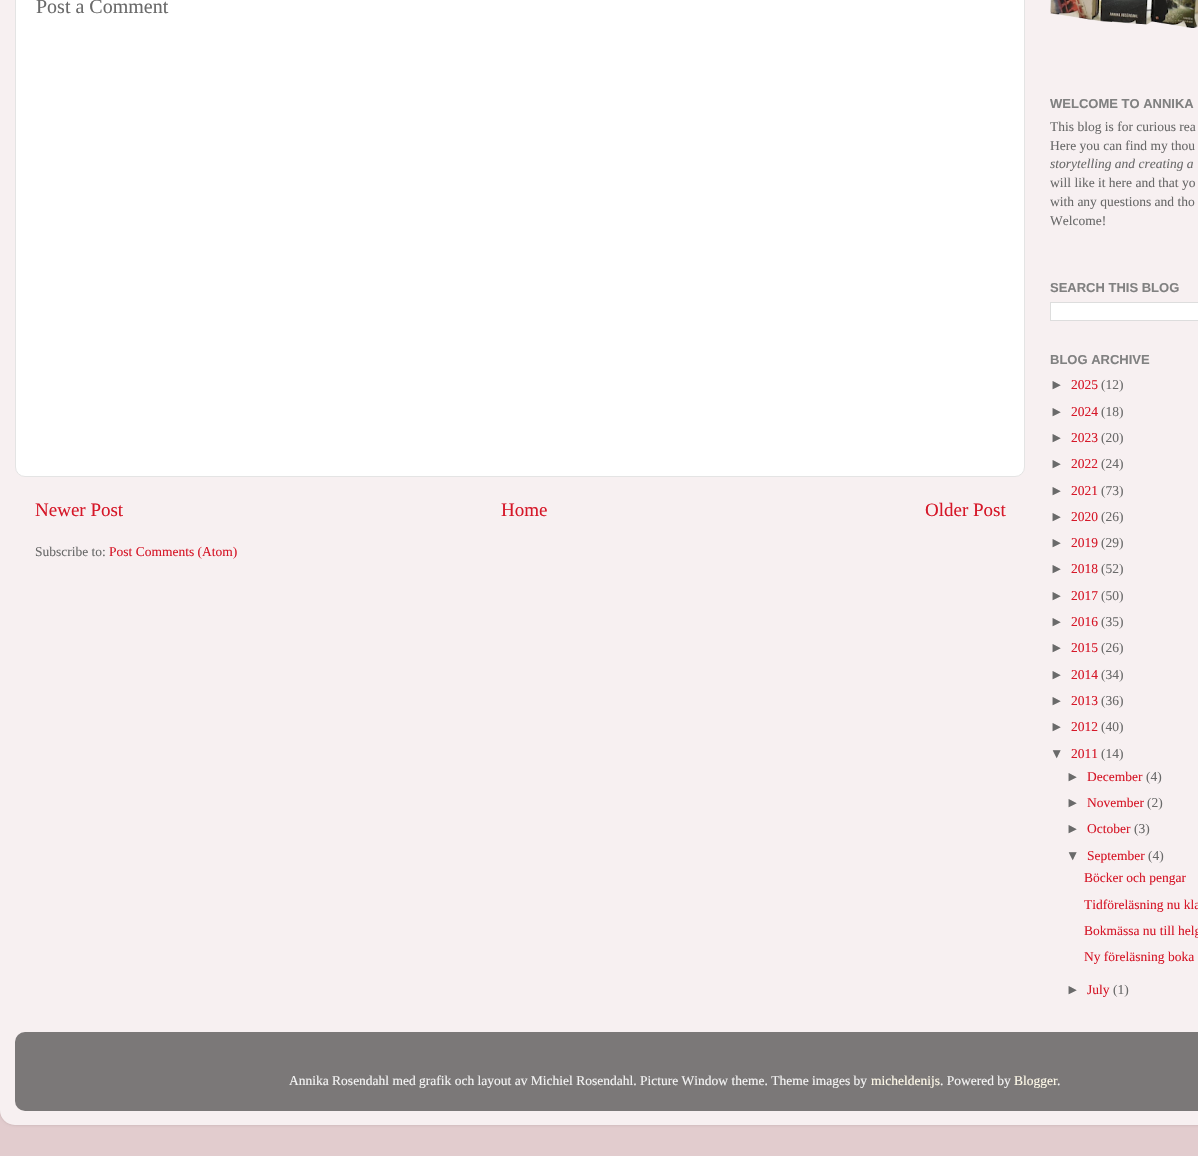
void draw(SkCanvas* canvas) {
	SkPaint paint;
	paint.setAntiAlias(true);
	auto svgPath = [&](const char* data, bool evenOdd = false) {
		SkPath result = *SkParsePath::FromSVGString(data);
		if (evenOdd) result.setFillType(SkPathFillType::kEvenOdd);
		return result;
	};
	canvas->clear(0xffe2ccce);
	canvas->save();
	canvas->clipPath(svgPath("M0 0H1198V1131H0ZM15-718H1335C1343.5-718 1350-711.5 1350-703V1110C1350 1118.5 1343.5 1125 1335 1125H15C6.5 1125 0 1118.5 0 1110V-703C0-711.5 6.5-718 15-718Z", true), true);
	paint.setColor(0x26000000);
	paint.setMaskFilter(SkMaskFilter::MakeBlur(kNormal_SkBlurStyle, 1.5));
	canvas->drawRoundRect(SkRect::MakeXYWH(0, -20, 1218, 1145), 15, 15, paint);
	paint.setMaskFilter(nullptr);
	canvas->restore();
	canvas->drawImageRect(SkImages::DeferredFromEncodedData(SkData::MakeFromFileName("img1.png")), SkRect::MakeXYWH(0, 0, 1198, 1125), SkSamplingOptions());
	paint.setColor(0xffffffff);
	canvas->drawRoundRect(SkRect::MakeXYWH(15.5, -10.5, 1009, 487), 9.5, 9.5, paint);
	paint.setStroke(true);
	paint.setStrokeWidth(1);
	paint.setColor(0xffe4e4e4);
	canvas->drawRoundRect(SkRect::MakeXYWH(15.5, -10.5, 1009, 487), 9.5, 9.5, paint);
	SkFont f1(fontMgr->matchFamilyStyle("Liberation Serif", SkFontStyle::Normal()), 20);
	f1.setSubpixel(true);
	paint.setStroke(false);
	paint.setColor(0xff6a6a6a);
	canvas->drawString("Post a Comment", 36, 13, f1, paint);
	SkFont f2(fontMgr->matchFamilyStyle("Liberation Serif", SkFontStyle::Normal()), 19);
	f2.setSubpixel(true);
	paint.setColor(0xffd61829);
	canvas->drawString("Newer Post", 35, 516, f2, paint);
	canvas->drawString("Home", 501, 516, f2, paint);
	canvas->drawString("Older Post", 925, 516, f2, paint);
	SkFont f3(fontMgr->matchFamilyStyle("Liberation Serif", SkFontStyle::Normal()), 13.5);
	f3.setSubpixel(true);
	paint.setColor(0xff6a6a6a);
	canvas->drawString("Subscribe to:", 35, 556, f3, paint);
	paint.setColor(0xffd61829);
	canvas->drawString("Post Comments (Atom)", 109, 556, f3, paint);
	canvas->drawImageRect(SkImages::DeferredFromEncodedData(SkData::MakeFromFileName("img2.png")), SkRect::MakeXYWH(1050, 0, 148, 28), SkSamplingOptions());
	SkFont f4(fontMgr->matchFamilyStyle("Liberation Sans", SkFontStyle::Bold()), 13);
	f4.setSubpixel(true);
	paint.setColor(0xff818181);
	canvas->drawString("WELCOME TO ANNIKA", 1050, 108, f4, paint);
	paint.setColor(0xff6a6a6a);
	canvas->drawString("This blog is for curious rea", 1050, 131, f3, paint);
	canvas->drawString("Here you can find my thou", 1050, 150, f3, paint);
	SkFont f5(fontMgr->matchFamilyStyle("Liberation Serif", SkFontStyle::Italic()), 13.5);
	f5.setSubpixel(true);
	canvas->drawString("storytelling and creating a", 1050, 168, f5, paint);
	canvas->drawString("will like it here and that yo", 1050, 187, f3, paint);
	canvas->drawString("with any questions and tho", 1050, 206, f3, paint);
	canvas->drawString("Welcome!", 1050, 225, f3, paint);
	paint.setColor(0xff818181);
	canvas->drawString("SEARCH THIS BLOG", 1050, 292, f4, paint);
	paint.setColor(0xffffffff);
	canvas->drawRect(SkRect::MakeXYWH(1050.5, 302.5, 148, 18), paint);
	paint.setStroke(true);
	paint.setColor(0xffdddddd);
	canvas->drawRect(SkRect::MakeXYWH(1050.5, 302.5, 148, 18), paint);
	paint.setStroke(false);
	paint.setColor(0xff818181);
	canvas->drawString("BLOG ARCHIVE", 1050, 364, f4, paint);
	SkFont f6(fontMgr->matchFamilyStyle("Liberation Sans", SkFontStyle::Normal()), 13.5);
	f6.setSubpixel(true);
	paint.setColor(0xff6a6a6a);
	canvas->drawString("►", 1050, 389, f6, paint);
	paint.setColor(0xffd61829);
	canvas->drawString("2025", 1071, 389, f3, paint);
	paint.setColor(0xff6a6a6a);
	canvas->drawString("(12)", 1101, 389, f3, paint);
	canvas->drawString("►", 1050, 416, f6, paint);
	paint.setColor(0xffd61829);
	canvas->drawString("2024", 1071, 416, f3, paint);
	paint.setColor(0xff6a6a6a);
	canvas->drawString("(18)", 1101, 416, f3, paint);
	canvas->drawString("►", 1050, 442, f6, paint);
	paint.setColor(0xffd61829);
	canvas->drawString("2023", 1071, 442, f3, paint);
	paint.setColor(0xff6a6a6a);
	canvas->drawString("(20)", 1101, 442, f3, paint);
	canvas->drawString("►", 1050, 468, f6, paint);
	paint.setColor(0xffd61829);
	canvas->drawString("2022", 1071, 468, f3, paint);
	paint.setColor(0xff6a6a6a);
	canvas->drawString("(24)", 1101, 468, f3, paint);
	canvas->drawString("►", 1050, 495, f6, paint);
	paint.setColor(0xffd61829);
	canvas->drawString("2021", 1071, 495, f3, paint);
	paint.setColor(0xff6a6a6a);
	canvas->drawString("(73)", 1101, 495, f3, paint);
	canvas->drawString("►", 1050, 521, f6, paint);
	paint.setColor(0xffd61829);
	canvas->drawString("2020", 1071, 521, f3, paint);
	paint.setColor(0xff6a6a6a);
	canvas->drawString("(26)", 1101, 521, f3, paint);
	canvas->drawString("►", 1050, 547, f6, paint);
	paint.setColor(0xffd61829);
	canvas->drawString("2019", 1071, 547, f3, paint);
	paint.setColor(0xff6a6a6a);
	canvas->drawString("(29)", 1101, 547, f3, paint);
	canvas->drawString("►", 1050, 573, f6, paint);
	paint.setColor(0xffd61829);
	canvas->drawString("2018", 1071, 573, f3, paint);
	paint.setColor(0xff6a6a6a);
	canvas->drawString("(52)", 1101, 573, f3, paint);
	canvas->drawString("►", 1050, 600, f6, paint);
	paint.setColor(0xffd61829);
	canvas->drawString("2017", 1071, 600, f3, paint);
	paint.setColor(0xff6a6a6a);
	canvas->drawString("(50)", 1101, 600, f3, paint);
	canvas->drawString("►", 1050, 626, f6, paint);
	paint.setColor(0xffd61829);
	canvas->drawString("2016", 1071, 626, f3, paint);
	paint.setColor(0xff6a6a6a);
	canvas->drawString("(35)", 1101, 626, f3, paint);
	canvas->drawString("►", 1050, 652, f6, paint);
	paint.setColor(0xffd61829);
	canvas->drawString("2015", 1071, 652, f3, paint);
	paint.setColor(0xff6a6a6a);
	canvas->drawString("(26)", 1101, 652, f3, paint);
	canvas->drawString("►", 1050, 679, f6, paint);
	paint.setColor(0xffd61829);
	canvas->drawString("2014", 1071, 679, f3, paint);
	paint.setColor(0xff6a6a6a);
	canvas->drawString("(34)", 1101, 679, f3, paint);
	canvas->drawString("►", 1050, 705, f6, paint);
	paint.setColor(0xffd61829);
	canvas->drawString("2013", 1071, 705, f3, paint);
	paint.setColor(0xff6a6a6a);
	canvas->drawString("(36)", 1101, 705, f3, paint);
	canvas->drawString("►", 1050, 731, f6, paint);
	paint.setColor(0xffd61829);
	canvas->drawString("2012", 1071, 731, f3, paint);
	paint.setColor(0xff6a6a6a);
	canvas->drawString("(40)", 1101, 731, f3, paint);
	canvas->drawString("▼", 1050, 758, f6, paint);
	paint.setColor(0xffd61829);
	canvas->drawString("2011", 1071, 758, f3, paint);
	paint.setColor(0xff6a6a6a);
	canvas->drawString("(14)", 1101, 758, f3, paint);
	canvas->drawString("►", 1066, 781, f6, paint);
	paint.setColor(0xffd61829);
	canvas->drawString("December", 1087, 781, f3, paint);
	paint.setColor(0xff6a6a6a);
	canvas->drawString("(4)", 1146, 781, f3, paint);
	canvas->drawString("►", 1066, 807, f6, paint);
	paint.setColor(0xffd61829);
	canvas->drawString("November", 1087, 807, f3, paint);
	paint.setColor(0xff6a6a6a);
	canvas->drawString("(2)", 1147, 807, f3, paint);
	canvas->drawString("►", 1066, 833, f6, paint);
	paint.setColor(0xffd61829);
	canvas->drawString("October", 1087, 833, f3, paint);
	paint.setColor(0xff6a6a6a);
	canvas->drawString("(3)", 1134, 833, f3, paint);
	canvas->drawString("▼", 1066, 860, f6, paint);
	paint.setColor(0xffd61829);
	canvas->drawString("September", 1087, 860, f3, paint);
	paint.setColor(0xff6a6a6a);
	canvas->drawString("(4)", 1148, 860, f3, paint);
	paint.setColor(0xffd61829);
	canvas->drawString("Böcker och pengar", 1084, 882, f3, paint);
	canvas->drawString("Tidföreläsning nu kla", 1084, 909, f3, paint);
	canvas->drawString("Bokmässa nu till helg", 1084, 935, f3, paint);
	canvas->drawString("Ny föreläsning boka", 1084, 961, f3, paint);
	paint.setColor(0xff6a6a6a);
	canvas->drawString("►", 1066, 994, f6, paint);
	paint.setColor(0xffd61829);
	canvas->drawString("July", 1087, 994, f3, paint);
	paint.setColor(0xff6a6a6a);
	canvas->drawString("(1)", 1113, 994, f3, paint);
	canvas->drawImageRect(SkImages::DeferredFromEncodedData(SkData::MakeFromFileName("img3.png")), SkRect::MakeXYWH(15, 1032, 1183, 79), SkSamplingOptions());
	paint.setColor(0xfff4f4f4);
	canvas->drawString("Annika Rosendahl med grafik och layout av Michiel Rosendahl. Picture Window theme. Theme images by", 289, 1085, f3, paint);
	paint.setColor(0xfffffae9);
	canvas->drawString("micheldenijs", 871, 1085, f3, paint);
	paint.setColor(0xfff4f4f4);
	canvas->drawString(". Powered by", 940, 1085, f3, paint);
	paint.setColor(0xfffffae9);
	canvas->drawString("Blogger", 1014, 1085, f3, paint);
	paint.setColor(0xfff4f4f4);
	canvas->drawString(".", 1057, 1085, f3, paint);
}
